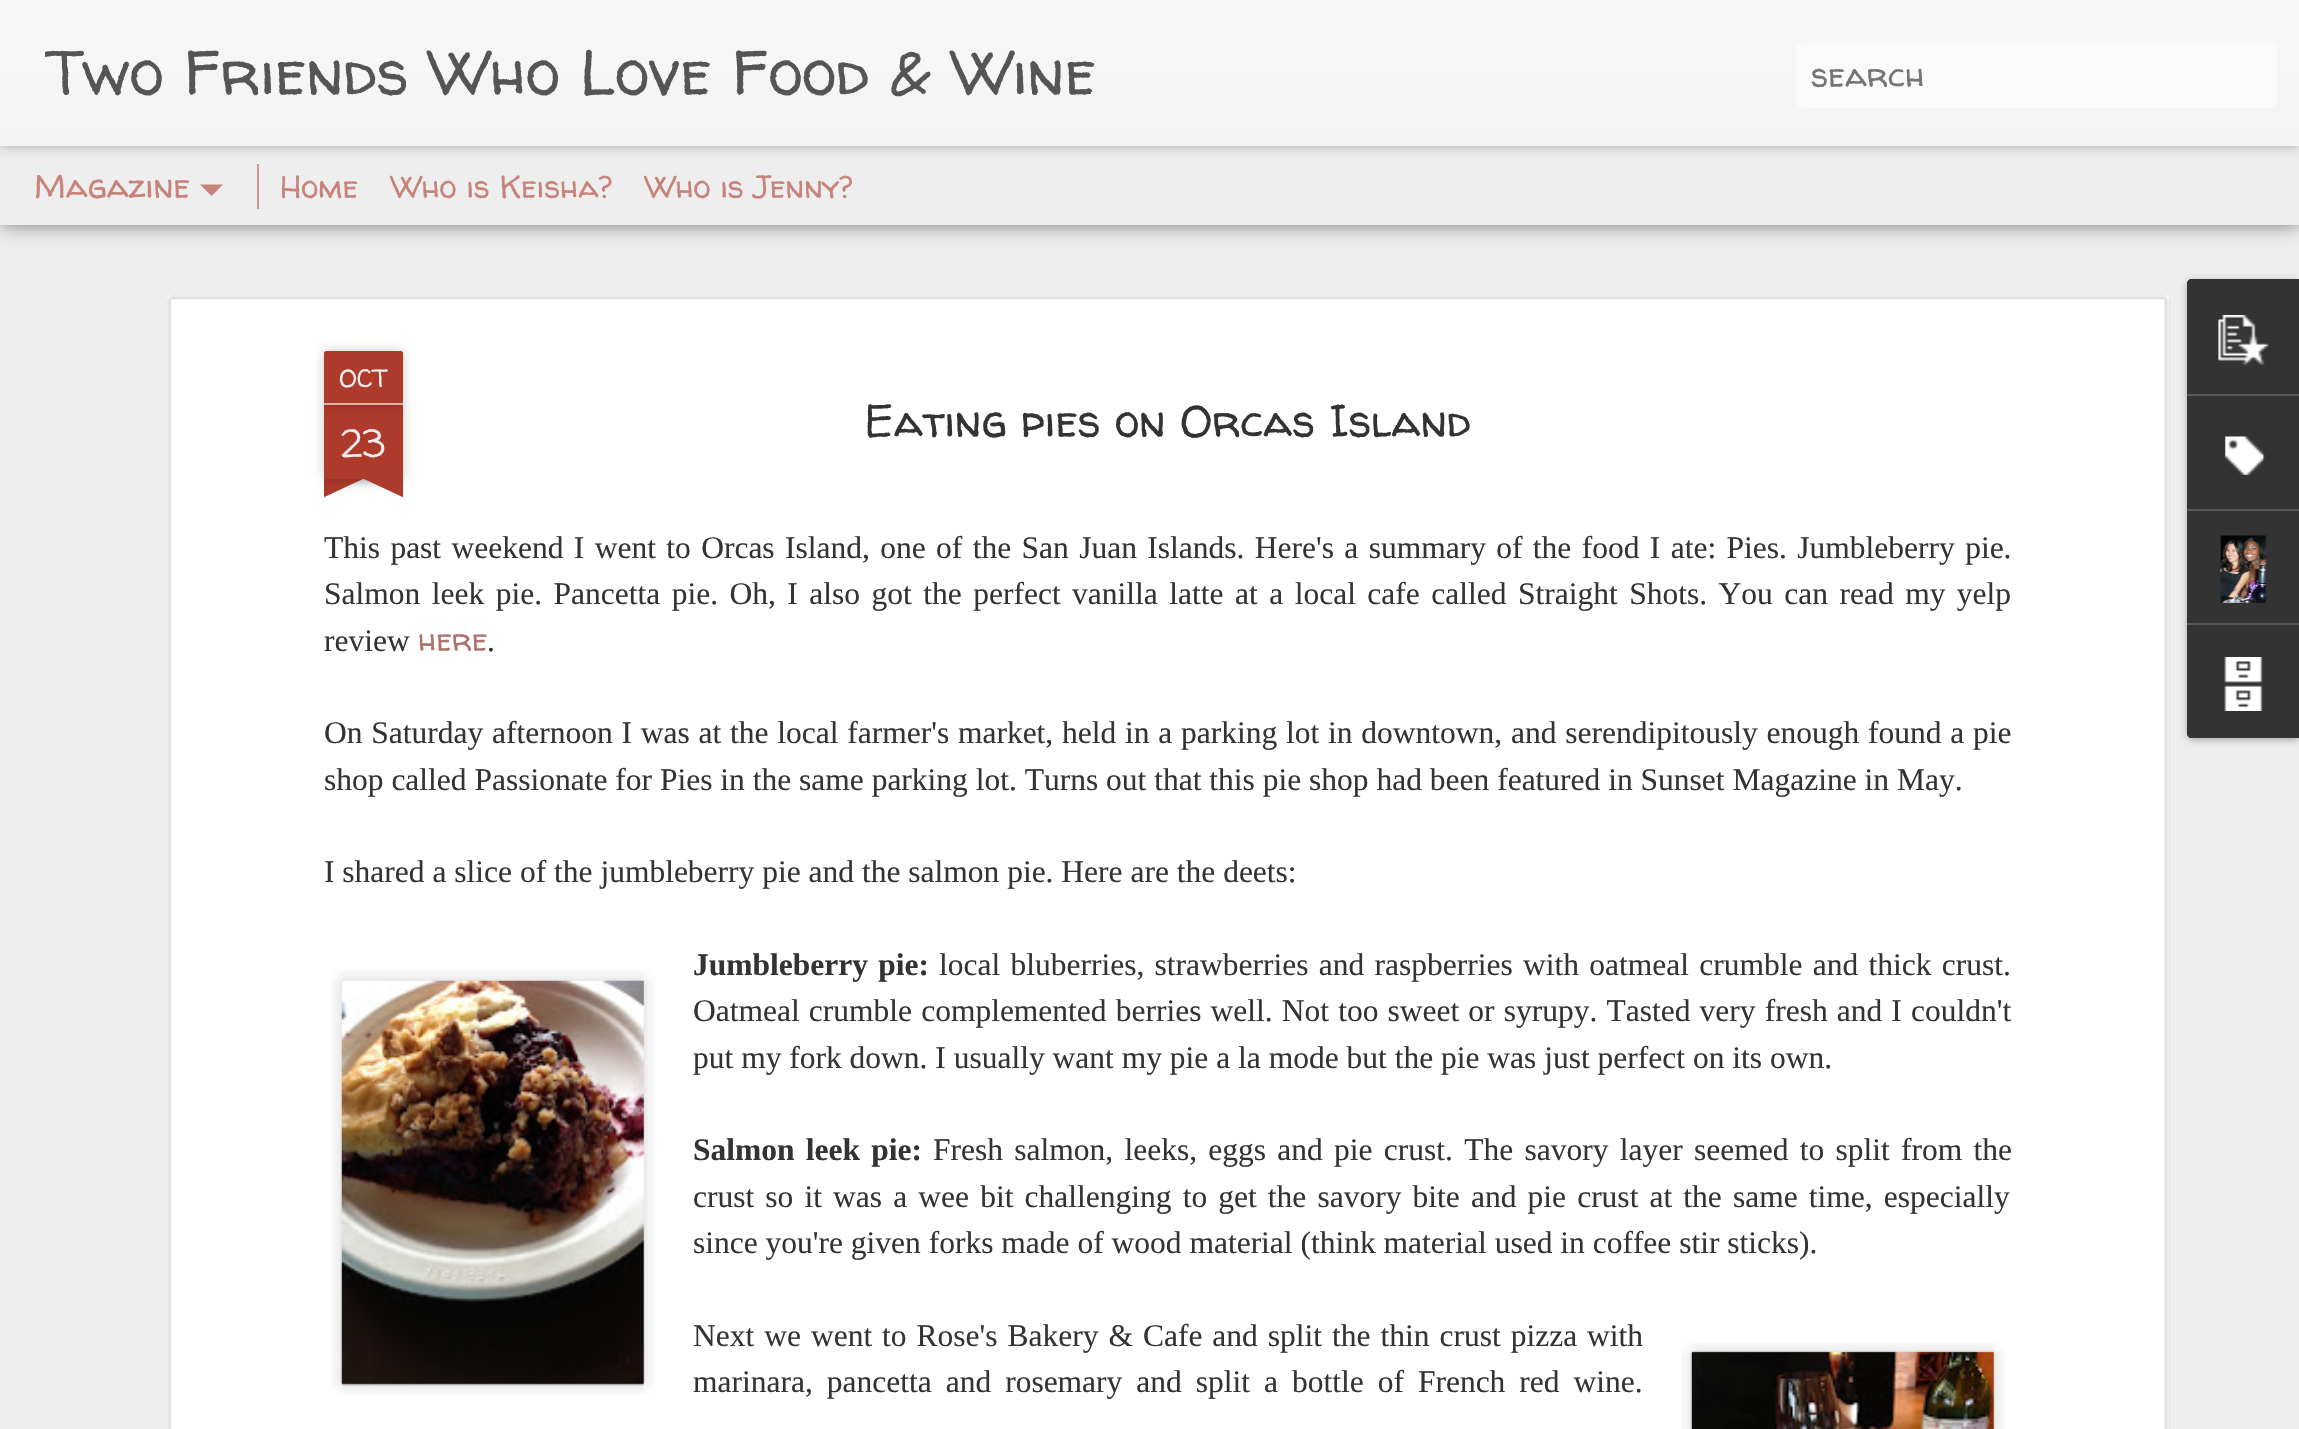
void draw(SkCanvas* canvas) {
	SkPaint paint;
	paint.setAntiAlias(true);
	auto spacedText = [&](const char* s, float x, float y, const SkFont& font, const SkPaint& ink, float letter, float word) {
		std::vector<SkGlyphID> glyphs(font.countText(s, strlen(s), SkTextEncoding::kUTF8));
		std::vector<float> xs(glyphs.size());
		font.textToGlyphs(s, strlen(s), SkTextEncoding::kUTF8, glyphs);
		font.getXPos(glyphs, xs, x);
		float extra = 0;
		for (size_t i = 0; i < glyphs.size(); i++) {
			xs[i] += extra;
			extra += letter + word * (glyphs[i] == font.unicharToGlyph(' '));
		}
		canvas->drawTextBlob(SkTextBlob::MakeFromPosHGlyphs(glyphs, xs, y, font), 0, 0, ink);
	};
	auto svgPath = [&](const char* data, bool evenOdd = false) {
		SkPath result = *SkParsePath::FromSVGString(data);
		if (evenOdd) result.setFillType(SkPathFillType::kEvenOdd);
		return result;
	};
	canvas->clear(0xffeeeeee);
	paint.setColor(0x80000000);
	paint.setMaskFilter(SkMaskFilter::MakeBlur(kNormal_SkBlurStyle, 9));
	canvas->drawRect(SkRect::MakeXYWH(0, 146, 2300, 79), paint);
	paint.setMaskFilter(nullptr);
	paint.setColor(0xffeeeeee);
	canvas->drawRect(SkRect::MakeXYWH(0, 146, 2299, 79), paint);
	paint.setColor(0x4d000000);
	paint.setMaskFilter(SkMaskFilter::MakeBlur(kNormal_SkBlurStyle, 5.5));
	canvas->drawRect(SkRect::MakeXYWH(0, 0, 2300, 146), paint);
	paint.setMaskFilter(nullptr);
	{
		const SkColor colors[] = {0xfff7f7f7, 0xfff4f4f4};
		const float stops[] = {0, 1};
		const SkPoint ends[] = {{0, 0}, {0, 146}};
		paint.setShader(SkGradientShader::MakeLinear(ends, colors, stops, 2, SkTileMode::kClamp));
		paint.setAlpha(255);
	}
	canvas->drawRect(SkRect::MakeXYWH(0, 0, 2299, 146), paint);
	canvas->save();
	canvas->clipRect(SkRect::MakeXYWH(45, 0, 1726, 146));
	SkFont f1(fontMgr->matchFamilyStyle("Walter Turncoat", SkFontStyle::Normal()), 63);
	f1.setSubpixel(true);
	paint.setShader(nullptr);
	paint.setColor(0xff555555);
	canvas->drawString("Two Friends Who Love Food & Wine", 45, 95, f1, paint);
	canvas->restore();
	paint.setColor(0xfffafafa);
	canvas->drawRoundRect(SkRect::MakeXYWH(1796, 41, 481, 67), 7, 7, paint);
	SkFont f2(fontMgr->matchFamilyStyle("Walter Turncoat", SkFontStyle::Normal()), 33.75);
	f2.setSubpixel(true);
	paint.setColor(0xff757575);
	canvas->drawString("search", 1811, 87, f2, paint);
	paint.setColor(0xffc78279);
	canvas->drawString("Magazine", 34, 198, f2, paint);
	canvas->drawPath(svgPath("M200 184.5H223L211.5 196Z"), paint);
	paint.setColor(0xffce948d);
	canvas->drawRect(SkRect::MakeXYWH(257, 164, 2, 45), paint);
	SkFont f3(fontMgr->matchFamilyStyle("Walter Turncoat", SkFontStyle::Normal()), 31.5);
	f3.setSubpixel(true);
	paint.setColor(0xffc78279);
	canvas->drawString("Home", 280, 198, f3, paint);
	canvas->drawString("Who is Keisha?", 391, 198, f3, paint);
	canvas->drawString("Who is Jenny?", 645, 198, f3, paint);
	paint.setColor(0xffffffff);
	canvas->drawRect(SkRect::MakeXYWH(167, 295, 2002, 1134), paint);
	canvas->drawImageRect(SkImages::DeferredFromEncodedData(SkData::MakeFromFileName("img1.png")), SkRect::MakeXYWH(167, 295, 2003, 1134), SkSamplingOptions());
	paint.setColor(0x33000000);
	paint.setMaskFilter(SkMaskFilter::MakeBlur(kNormal_SkBlurStyle, 5.5));
	canvas->drawRect(SkRect::MakeXYWH(324, 405, 79, 74), paint);
	paint.setMaskFilter(nullptr);
	paint.setColor(0xffad3a2b);
	canvas->drawRect(SkRect::MakeXYWH(324, 405, 79, 74), paint);
	paint.setColor(0x33000000);
	paint.setMaskFilter(SkMaskFilter::MakeBlur(kNormal_SkBlurStyle, 5.5));
	canvas->drawRoundRect(SkRect::MakeXYWH(324, 351, 79, 54), 2, 2, paint);
	paint.setMaskFilter(nullptr);
	paint.setColor(0xffad3a2b);
	canvas->drawPath(svgPath("M326 351H401C402 351 403 352 403 353V405H324V353C324 352 325 351 326 351Z"), paint);
	paint.setColor(0xffdeb0aa);
	canvas->drawRect(SkRect::MakeXYWH(324, 403, 79, 2), paint);
	SkFont f4(fontMgr->matchFamilyStyle("Walter Turncoat", SkFontStyle::Normal()), 25);
	f4.setSubpixel(true);
	paint.setColor(0xffeeeeee);
	canvas->drawString("OCT", 339, 387, f4, paint);
	SkFont f5(fontMgr->matchFamilyStyle("Walter Turncoat", SkFontStyle::Normal()), 38);
	f5.setSubpixel(true);
	canvas->drawString("23", 341, 457, f5, paint);
	canvas->save();
	canvas->clipRect(SkRect::MakeXYWH(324, 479, 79, 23));
	paint.setColor(0x33000000);
	paint.setMaskFilter(SkMaskFilter::MakeBlur(kNormal_SkBlurStyle, 5.5));
	canvas->drawRect(SkRect::MakeXYWH(304, 457, 112, 22), paint);
	paint.setMaskFilter(nullptr);
	canvas->restore();
	canvas->save();
	canvas->clipRect(SkRect::MakeXYWH(324, 479, 79, 23));
	paint.setColor(0xffad3a2b);
	canvas->drawPath(svgPath("M304 482L406 434L416 454L314 502Z"), paint);
	canvas->restore();
	canvas->save();
	canvas->clipRect(SkRect::MakeXYWH(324, 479, 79, 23));
	paint.setColor(0x33000000);
	paint.setMaskFilter(SkMaskFilter::MakeBlur(kNormal_SkBlurStyle, 5.5));
	canvas->drawRect(SkRect::MakeXYWH(311, 457, 112, 22), paint);
	paint.setMaskFilter(nullptr);
	canvas->restore();
	canvas->save();
	canvas->clipRect(SkRect::MakeXYWH(324, 479, 79, 23));
	paint.setColor(0xffad3a2b);
	canvas->drawPath(svgPath("M321 434L422 482L413 502L311 454Z"), paint);
	canvas->restore();
	SkFont f6(fontMgr->matchFamilyStyle("Walter Turncoat", SkFontStyle::Normal()), 45);
	f6.setSubpixel(true);
	paint.setColor(0xff333333);
	canvas->drawString("Eating pies on Orcas Island", 864, 437, f6, paint);
	SkFont f7(fontMgr->matchFamilyStyle("Liberation Serif", SkFontStyle::Normal()), 31.5);
	f7.setSubpixel(true);
	spacedText("This past weekend I went to Orcas Island, one of the San Juan Islands. Here's a summary of the food I ate: Pies. Jumbleberry pie.", 324, 558, f7, paint, 0, 2.5);
	spacedText("Salmon leek pie. Pancetta pie. Oh, I also got the perfect vanilla latte at a local cafe called Straight Shots. You can read my yelp", 324, 604, f7, paint, 0, 3.6);
	canvas->drawString("review", 324, 651, f7, paint);
	paint.setColor(0xffad736c);
	canvas->drawString("here", 418, 651, f3, paint);
	paint.setColor(0xff333333);
	canvas->drawString(".", 487, 651, f7, paint);
	spacedText("On Saturday afternoon I was at the local farmer's market, held in a parking lot in downtown, and serendipitously enough found a pie", 324, 743, f7, paint, 0, 0.9);
	canvas->drawString("shop called Passionate for Pies in the same parking lot. Turns out that this pie shop had been featured in Sunset Magazine in May.", 324, 790, f7, paint);
	canvas->drawString("I shared a slice of the jumbleberry pie and the salmon pie. Here are the deets:", 324, 882, f7, paint);
	canvas->drawImageRect(SkImages::DeferredFromEncodedData(SkData::MakeFromFileName("img2.png")), SkRect::MakeXYWH(331, 970, 324, 425), SkSamplingOptions());
	canvas->drawImageRect(SkImages::DeferredFromEncodedData(SkData::MakeFromFileName("img3.png")), SkRect::MakeXYWH(340, 979, 305, 407), SkSamplingOptions());
	SkFont f8(fontMgr->matchFamilyStyle("Liberation Serif", SkFontStyle::Bold()), 31.5);
	f8.setSubpixel(true);
	spacedText("Jumbleberry pie:", 693, 975, f8, paint, 0, 2.4);
	spacedText("local bluberries, strawberries and raspberries with oatmeal crumble and thick crust.", 939, 975, f7, paint, 0, 2.4);
	spacedText("Oatmeal crumble complemented berries well. Not too sweet or syrupy. Tasted very fresh and I couldn't", 693, 1021, f7, paint, 0, 1.25);
	canvas->drawString("put my fork down. I usually want my pie a la mode but the pie was just perfect on its own.", 693, 1068, f7, paint);
	spacedText("Salmon leek pie:", 693, 1160, f8, paint, 0, 3.4);
	spacedText("Fresh salmon, leeks, eggs and pie crust. The savory layer seemed to split from the", 933, 1160, f7, paint, 0, 3.4);
	spacedText("crust so it was a wee bit challenging to get the savory bite and pie crust at the same time, especially", 693, 1207, f7, paint, 0, 3.25);
	canvas->drawString("since you're given forks made of wood material (think material used in coffee stir sticks).", 693, 1253, f7, paint);
	spacedText("Next we went to Rose's Bakery & Cafe and split the thin crust pizza with", 693, 1346, f7, paint, 0, 2.1);
	spacedText("marinara, pancetta and rosemary and split a bottle of French red wine.", 693, 1392, f7, paint, 0, 6.1);
	canvas->drawImageRect(SkImages::DeferredFromEncodedData(SkData::MakeFromFileName("img4.png")), SkRect::MakeXYWH(1681, 1342, 324, 87), SkSamplingOptions());
	canvas->drawImageRect(SkImages::DeferredFromEncodedData(SkData::MakeFromFileName("img5.png")), SkRect::MakeXYWH(1690, 1350, 305, 79), SkSamplingOptions());
	paint.setColor(0x4d000000);
	paint.setMaskFilter(SkMaskFilter::MakeBlur(kNormal_SkBlurStyle, 3.5));
	canvas->drawRoundRect(SkRect::MakeXYWH(2187, 281, 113, 459), 5, 5, paint);
	paint.setMaskFilter(nullptr);
	paint.setColor(0xff333333);
	canvas->drawPath(svgPath("M2192 279H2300V738H2192C2189 738 2187 736 2187 733V284C2187 281 2189 279 2192 279Z"), paint);
	canvas->drawPath(svgPath("M2192 279H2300V394H2187V284C2187 281 2189 279 2192 279Z"), paint);
	canvas->drawImageRect(SkImages::DeferredFromEncodedData(SkData::MakeFromFileName("img6.png")), SkRect::MakeXYWH(2218, 315, 51, 50), SkSamplingOptions());
	paint.setColor(0xff585858);
	canvas->drawRect(SkRect::MakeXYWH(2187, 394, 112, 2), paint);
	canvas->drawImageRect(SkImages::DeferredFromEncodedData(SkData::MakeFromFileName("img7.png")), SkRect::MakeXYWH(2225, 436, 40, 39), SkSamplingOptions());
	canvas->drawRect(SkRect::MakeXYWH(2187, 509, 112, 2), paint);
	canvas->drawImageRect(SkImages::DeferredFromEncodedData(SkData::MakeFromFileName("img8.png")), SkRect::MakeXYWH(2220, 535, 47, 68), SkSamplingOptions());
	paint.setColor(0xff333333);
	canvas->drawPath(svgPath("M2187 623H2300V738H2192C2189 738 2187 736 2187 733Z"), paint);
	paint.setColor(0xff585858);
	canvas->drawRect(SkRect::MakeXYWH(2187, 623, 112, 2), paint);
	canvas->drawImageRect(SkImages::DeferredFromEncodedData(SkData::MakeFromFileName("img9.png")), SkRect::MakeXYWH(2224, 657, 39, 54), SkSamplingOptions());
}
